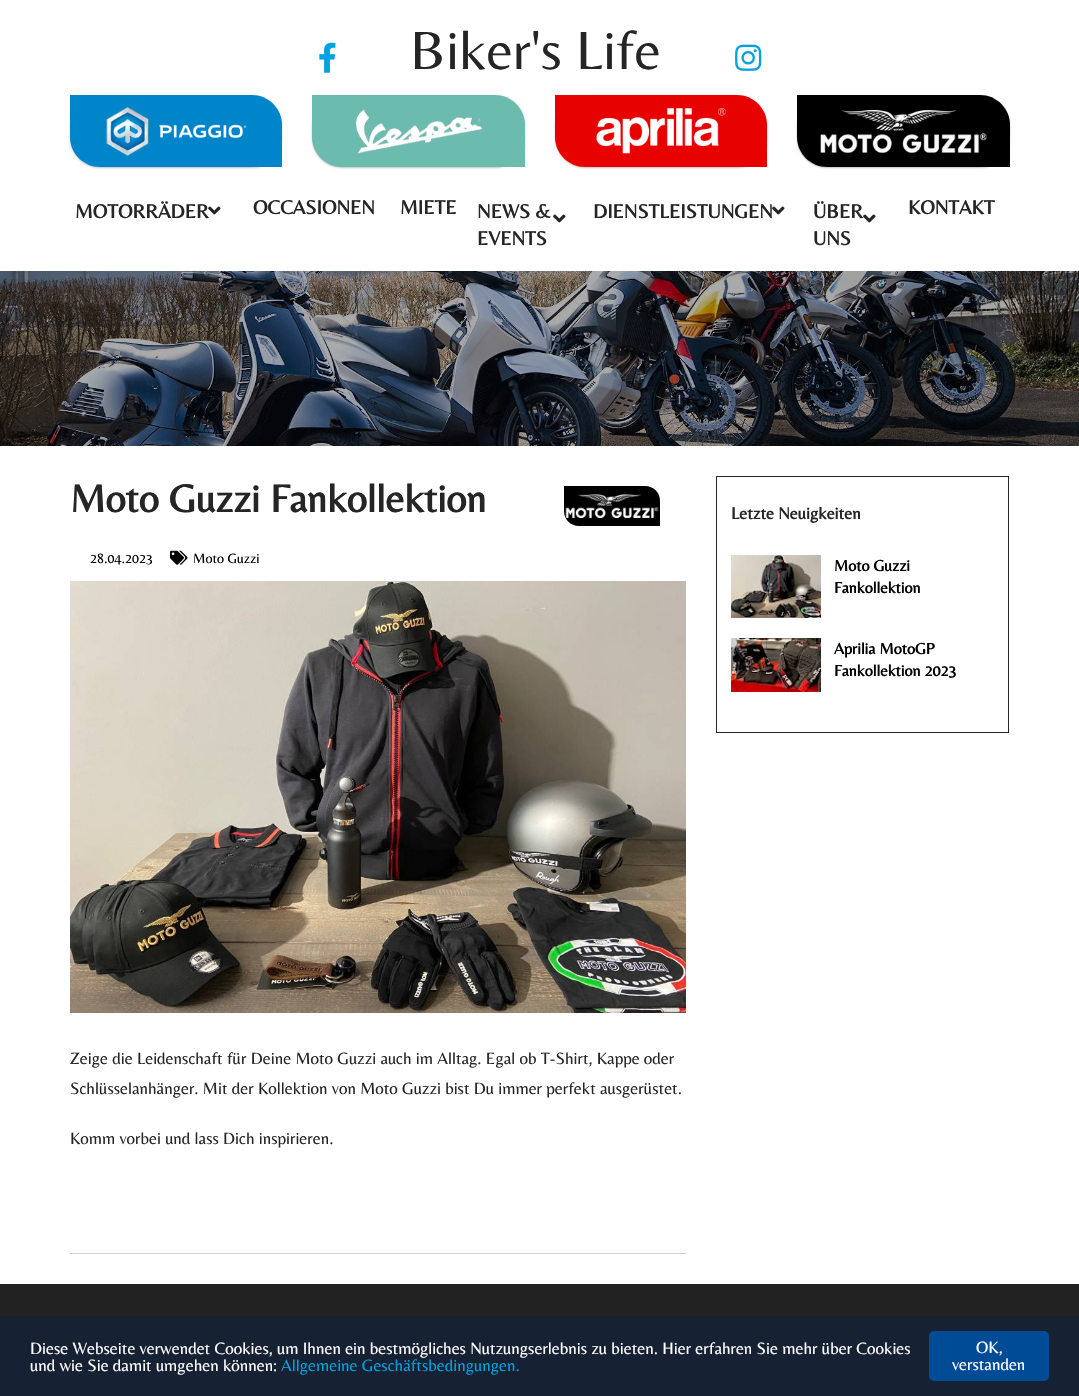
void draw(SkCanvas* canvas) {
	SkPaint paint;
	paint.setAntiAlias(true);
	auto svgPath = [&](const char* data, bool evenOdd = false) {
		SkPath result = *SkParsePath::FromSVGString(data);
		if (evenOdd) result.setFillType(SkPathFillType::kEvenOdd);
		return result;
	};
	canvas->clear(0xffffffff);
	canvas->drawImageRect(SkImages::DeferredFromEncodedData(SkData::MakeFromFileName("img1.png")), SkRect::MakeXYWH(319, 42, 17, 31), SkSamplingOptions());
	SkFont f1(fontMgr->matchFamilyStyle("Belleza", SkFontStyle::Normal()), 56);
	f1.setSubpixel(true);
	paint.setColor(0xff252525);
	canvas->drawString("Biker's Life", 410, 69, f1, paint);
	canvas->drawImageRect(SkImages::DeferredFromEncodedData(SkData::MakeFromFileName("img2.png")), SkRect::MakeXYWH(735, 44, 27, 27), SkSamplingOptions());
	paint.setColor(0x3d000000);
	paint.setMaskFilter(SkMaskFilter::MakeBlur(kNormal_SkBlurStyle, 1));
	canvas->drawRoundRect(SkRect::MakeXYWH(70, 96, 212, 72), 30, 30, paint);
	paint.setMaskFilter(nullptr);
	paint.setColor(0xff0085ca);
	canvas->drawPath(svgPath("M70 95H252C268.5 95 282 108.5 282 125V167H100C83.5 167 70 153.5 70 137Z"), paint);
	canvas->drawImageRect(SkImages::DeferredFromEncodedData(SkData::MakeFromFileName("img3.png")), SkRect::MakeXYWH(106, 107, 141, 49), SkSamplingOptions());
	paint.setColor(0x3d000000);
	paint.setMaskFilter(SkMaskFilter::MakeBlur(kNormal_SkBlurStyle, 1));
	canvas->drawRoundRect(SkRect::MakeXYWH(312, 96, 213, 72), 30, 30, paint);
	paint.setMaskFilter(nullptr);
	paint.setColor(0xff6bbbae);
	canvas->drawPath(svgPath("M312 95H495C511.5 95 525 108.5 525 125V167H342C325.5 167 312 153.5 312 137Z"), paint);
	canvas->drawImageRect(SkImages::DeferredFromEncodedData(SkData::MakeFromFileName("img4.png")), SkRect::MakeXYWH(355, 109, 127, 45), SkSamplingOptions());
	paint.setColor(0x3d000000);
	paint.setMaskFilter(SkMaskFilter::MakeBlur(kNormal_SkBlurStyle, 1));
	canvas->drawRoundRect(SkRect::MakeXYWH(555, 96, 212, 72), 30, 30, paint);
	paint.setMaskFilter(nullptr);
	paint.setColor(0xffe70101);
	canvas->drawPath(svgPath("M555 95H737C753.5 95 767 108.5 767 125V167H585C568.5 167 555 153.5 555 137Z"), paint);
	canvas->drawImageRect(SkImages::DeferredFromEncodedData(SkData::MakeFromFileName("img5.png")), SkRect::MakeXYWH(596, 108, 130, 46), SkSamplingOptions());
	paint.setColor(0x3d000000);
	paint.setMaskFilter(SkMaskFilter::MakeBlur(kNormal_SkBlurStyle, 1));
	canvas->drawRoundRect(SkRect::MakeXYWH(797, 96, 213, 72), 30, 30, paint);
	paint.setMaskFilter(nullptr);
	paint.setColor(0xff000000);
	canvas->drawPath(svgPath("M797 95H980C996.5 95 1010 108.5 1010 125V167H827C810.5 167 797 153.5 797 137Z"), paint);
	canvas->drawImageRect(SkImages::DeferredFromEncodedData(SkData::MakeFromFileName("img6.png")), SkRect::MakeXYWH(820, 109, 167, 44), SkSamplingOptions());
	SkFont f2(fontMgr->matchFamilyStyle("Belleza", SkFontStyle::Bold()), 20);
	f2.setSubpixel(true);
	paint.setColor(0xff252525);
	canvas->drawString("MOTORRÄDER", 75, 218, f2, paint);
	canvas->drawImageRect(SkImages::DeferredFromEncodedData(SkData::MakeFromFileName("img7.png")), SkRect::MakeXYWH(208, 206, 13, 9), SkSamplingOptions());
	canvas->drawString("OCCASIONEN", 253, 214, f2, paint);
	canvas->drawString("MIETE", 400, 214, f2, paint);
	canvas->drawString("NEWS &", 477, 218, f2, paint);
	canvas->drawImageRect(SkImages::DeferredFromEncodedData(SkData::MakeFromFileName("img7.png")), SkRect::MakeXYWH(553, 214, 13, 9), SkSamplingOptions());
	canvas->drawString("EVENTS", 477, 245, f2, paint);
	canvas->drawString("DIENSTLEISTUNGEN", 593, 218, f2, paint);
	canvas->drawImageRect(SkImages::DeferredFromEncodedData(SkData::MakeFromFileName("img7.png")), SkRect::MakeXYWH(772, 206, 13, 9), SkSamplingOptions());
	canvas->drawString("ÜBER", 813, 218, f2, paint);
	canvas->drawImageRect(SkImages::DeferredFromEncodedData(SkData::MakeFromFileName("img7.png")), SkRect::MakeXYWH(863, 214, 13, 9), SkSamplingOptions());
	canvas->drawString("UNS", 813, 245, f2, paint);
	canvas->drawString("KONTAKT", 908, 214, f2, paint);
	canvas->drawImageRect(SkImages::DeferredFromEncodedData(SkData::MakeFromFileName("img8.png")), SkRect::MakeXYWH(0, 271, 1079, 175), SkSamplingOptions());
	paint.setColor(0xffcfcfcf);
	canvas->drawRect(SkRect::MakeXYWH(70, 1253, 616, 1), paint);
	SkFont f3(fontMgr->matchFamilyStyle("Belleza", SkFontStyle::Bold()), 40);
	f3.setSubpixel(true);
	paint.setColor(0xff252525);
	canvas->drawString("Moto Guzzi Fankollektion", 70, 512, f3, paint);
	paint.setColor(0xff000000);
	canvas->drawPath(svgPath("M564 486H645C653.5 486 660 492.5 660 501V526H579C570.5 526 564 519.5 564 511Z"), paint);
	canvas->drawImageRect(SkImages::DeferredFromEncodedData(SkData::MakeFromFileName("img9.png")), SkRect::MakeXYWH(565, 494, 94, 24), SkSamplingOptions());
	SkFont f4(fontMgr->matchFamilyStyle("Belleza", SkFontStyle::Normal()), 14);
	f4.setSubpixel(true);
	canvas->drawString("28.04.2023", 90, 563, f4, paint);
	canvas->drawImageRect(SkImages::DeferredFromEncodedData(SkData::MakeFromFileName("img10.png")), SkRect::MakeXYWH(170, 550, 18, 15), SkSamplingOptions());
	canvas->drawString("Moto Guzzi", 193, 563, f4, paint);
	canvas->drawImageRect(SkImages::DeferredFromEncodedData(SkData::MakeFromFileName("img11.png")), SkRect::MakeXYWH(70, 581, 616, 432), SkSamplingOptions());
	SkFont f5(fontMgr->matchFamilyStyle("Belleza", SkFontStyle::Normal()), 17);
	f5.setSubpixel(true);
	paint.setColor(0xff252525);
	canvas->drawString("Zeige die Leidenschaft für Deine Moto Guzzi auch im Alltag. Egal ob T-Shirt, Kappe oder", 70, 1064, f5, paint);
	canvas->drawString("Schlüsselanhänger. Mit der Kollektion von Moto Guzzi bist Du immer perfekt ausgerüstet.", 70, 1094, f5, paint);
	canvas->drawString("Komm vorbei und lass Dich inspirieren.", 70, 1144, f5, paint);
	paint.setStroke(true);
	paint.setStrokeWidth(1);
	canvas->drawRect(SkRect::MakeXYWH(716.5, 476.5, 292, 256), paint);
	SkFont f6(fontMgr->matchFamilyStyle("Belleza", SkFontStyle::Bold()), 17);
	f6.setSubpixel(true);
	paint.setStroke(false);
	canvas->drawString("Letzte Neuigkeiten", 731, 519, f6, paint);
	canvas->drawImageRect(SkImages::DeferredFromEncodedData(SkData::MakeFromFileName("img12.png")), SkRect::MakeXYWH(731, 555, 90, 63), SkSamplingOptions());
	SkFont f7(fontMgr->matchFamilyStyle("Belleza", SkFontStyle::Bold()), 16);
	f7.setSubpixel(true);
	paint.setColor(0xff000000);
	canvas->drawString("Moto Guzzi", 834, 571, f7, paint);
	canvas->drawString("Fankollektion", 834, 593, f7, paint);
	canvas->drawImageRect(SkImages::DeferredFromEncodedData(SkData::MakeFromFileName("img13.png")), SkRect::MakeXYWH(731, 638, 90, 54), SkSamplingOptions());
	canvas->drawString("Aprilia MotoGP", 834, 654, f7, paint);
	canvas->drawString("Fankollektion 2023", 834, 676, f7, paint);
	paint.setColor(0xff222222);
	canvas->drawRect(SkRect::MakeXYWH(0, 1284, 1079, 32), paint);
	paint.setColor(0xff162133);
	canvas->drawRect(SkRect::MakeXYWH(0, 1316, 1079, 80), paint);
	paint.setColor(0xffffffff);
	canvas->drawString("Diese Webseite verwendet Cookies, um Ihnen ein bestmögliches Nutzungserlebnis zu bieten. Hier erfahren Sie mehr über Cookies", 30, 1354, f5, paint);
	canvas->drawString("und wie Sie damit umgehen können:", 30, 1371, f5, paint);
	paint.setColor(0xff00a3e0);
	canvas->drawString("Allgemeine Geschäftsbedingungen.", 281, 1371, f5, paint);
	paint.setColor(0xff004b95);
	canvas->drawRoundRect(SkRect::MakeXYWH(929, 1331, 120, 50), 5, 5, paint);
	paint.setColor(0xffffffff);
	canvas->drawString("OK,", 976, 1353, f5, paint);
	canvas->drawString("verstanden", 952, 1370, f5, paint);
}
